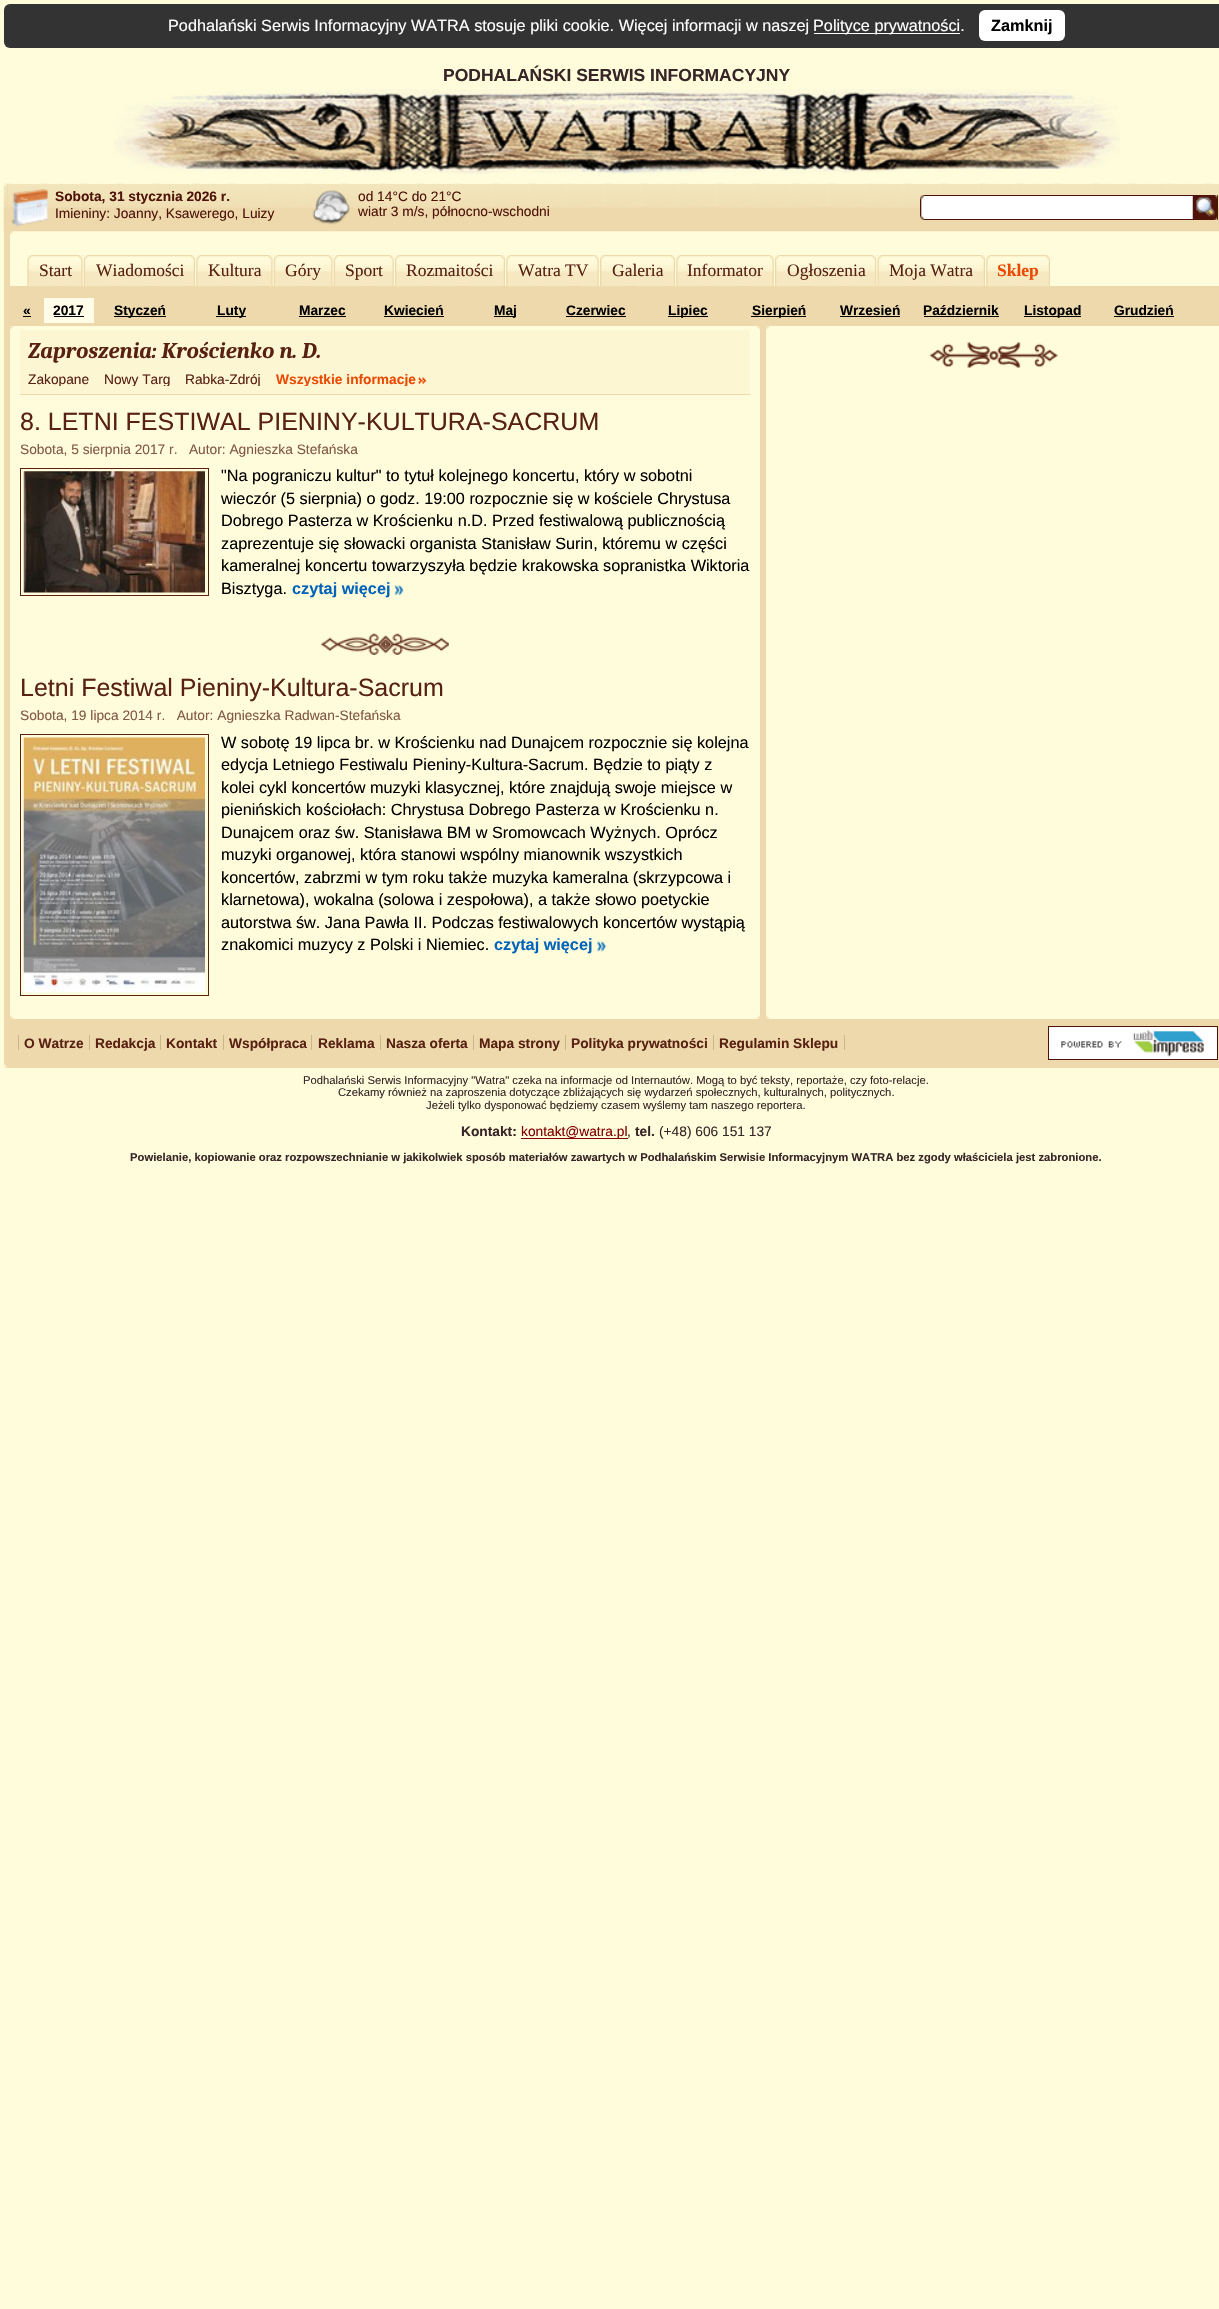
void draw(SkCanvas* canvas) {
	SkPaint paint;
	paint.setAntiAlias(true);
	canvas->clear(0xfffffcdb);
	paint.setColor(0xff333333);
	canvas->drawRoundRect(SkRect::MakeXYWH(4, 4, 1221, 44), 6, 6, paint);
	SkFont f1(fontMgr->matchFamilyStyle("Liberation Sans", SkFontStyle::Normal()), 16.25);
	f1.setSubpixel(true);
	paint.setColor(0xffffffff);
	canvas->drawString("Podhalański Serwis Informacyjny WATRA stosuje pliki cookie. Więcej informacji w naszej", 168, 31, f1, paint);
	canvas->drawRect(SkRect::MakeXYWH(814, 33, 146, 1), paint);
	canvas->drawString("Polityce prywatności.", 813, 31, f1, paint);
	canvas->drawRoundRect(SkRect::MakeXYWH(979, 10, 86, 31), 6, 6, paint);
	SkFont f2(fontMgr->matchFamilyStyle("Liberation Sans", SkFontStyle::Bold()), 16.25);
	f2.setSubpixel(true);
	paint.setColor(0xff000000);
	canvas->drawString("Zamknij", 991, 31, f2, paint);
	SkFont f3(fontMgr->matchFamilyStyle("Liberation Sans", SkFontStyle::Bold()), 17.5);
	f3.setSubpixel(true);
	paint.setColor(0xff382527);
	canvas->drawString("PODHALAŃSKI SERWIS INFORMACYJNY", 443, 81, f3, paint);
	canvas->drawImageRect(SkImages::DeferredFromEncodedData(SkData::MakeFromFileName("img1.png")), SkRect::MakeXYWH(113, 89, 1007, 85), SkSamplingOptions());
	paint.setColor(0xffeed9ac);
	canvas->drawRect(SkRect::MakeXYWH(4, 231, 6, 833), paint);
	canvas->drawImageRect(SkImages::DeferredFromEncodedData(SkData::MakeFromFileName("img8.png")), SkRect::MakeXYWH(10, 231, 4, 4), SkSamplingOptions());
	canvas->drawImageRect(SkImages::DeferredFromEncodedData(SkData::MakeFromFileName("img2.png")), SkRect::MakeXYWH(3, 183, 1216, 49), SkSamplingOptions());
	canvas->drawRect(SkRect::MakeXYWH(4, 184, 4, 24), paint);
	canvas->drawImageRect(SkImages::DeferredFromEncodedData(SkData::MakeFromFileName("img3.png")), SkRect::MakeXYWH(4, 184, 4, 23), SkSamplingOptions());
	canvas->drawImageRect(SkImages::DeferredFromEncodedData(SkData::MakeFromFileName("img4.png")), SkRect::MakeXYWH(10, 189, 38, 37), SkSamplingOptions());
	SkFont f4(fontMgr->matchFamilyStyle("Liberation Sans", SkFontStyle::Bold()), 13.75);
	f4.setSubpixel(true);
	paint.setColor(0xff4e1409);
	canvas->drawString("Sobota, 31 stycznia 2026 r.", 55, 201, f4, paint);
	SkFont f5(fontMgr->matchFamilyStyle("Liberation Sans", SkFontStyle::Normal()), 13.75);
	f5.setSubpixel(true);
	canvas->drawString("Imieniny: Joanny, Ksawerego, Luizy", 55, 218, f5, paint);
	canvas->drawImageRect(SkImages::DeferredFromEncodedData(SkData::MakeFromFileName("img5.png")), SkRect::MakeXYWH(312, 190, 38, 35), SkSamplingOptions());
	canvas->drawString("od 14°C do 21°C", 358, 201, f5, paint);
	canvas->drawString("wiatr 3 m/s, północno-wschodni", 358, 216, f5, paint);
	canvas->drawRect(SkRect::MakeXYWH(925, 195, 293, 25), paint);
	canvas->drawImageRect(SkImages::DeferredFromEncodedData(SkData::MakeFromFileName("img6.png")), SkRect::MakeXYWH(920, 195, 5, 25), SkSamplingOptions());
	paint.setColor(0xffffffff);
	canvas->drawRect(SkRect::MakeXYWH(924, 196, 269, 23), paint);
	canvas->drawImageRect(SkImages::DeferredFromEncodedData(SkData::MakeFromFileName("img7.png")), SkRect::MakeXYWH(1192, 195, 26, 25), SkSamplingOptions());
	paint.setColor(0xffeed9ac);
	canvas->drawRect(SkRect::MakeXYWH(10, 286, 1209, 40), paint);
	canvas->drawImageRect(SkImages::DeferredFromEncodedData(SkData::MakeFromFileName("img9.png")), SkRect::MakeXYWH(27, 255, 56, 32), SkSamplingOptions());
	canvas->drawImageRect(SkImages::DeferredFromEncodedData(SkData::MakeFromFileName("img10.png")), SkRect::MakeXYWH(27, 255, 5, 32), SkSamplingOptions());
	SkFont f6(fontMgr->matchFamilyStyle("Liberation Serif", SkFontStyle::Normal()), 17.5);
	f6.setSubpixel(true);
	paint.setColor(0xff582112);
	canvas->drawString("Start", 39, 276, f6, paint);
	canvas->drawImageRect(SkImages::DeferredFromEncodedData(SkData::MakeFromFileName("img11.png")), SkRect::MakeXYWH(78, 255, 5, 32), SkSamplingOptions());
	canvas->drawImageRect(SkImages::DeferredFromEncodedData(SkData::MakeFromFileName("img12.png")), SkRect::MakeXYWH(83, 255, 112, 32), SkSamplingOptions());
	canvas->drawImageRect(SkImages::DeferredFromEncodedData(SkData::MakeFromFileName("img13.png")), SkRect::MakeXYWH(83, 255, 5, 32), SkSamplingOptions());
	canvas->drawString("Wiadomości", 96, 276, f6, paint);
	canvas->drawImageRect(SkImages::DeferredFromEncodedData(SkData::MakeFromFileName("img14.png")), SkRect::MakeXYWH(191, 255, 4, 32), SkSamplingOptions());
	canvas->drawImageRect(SkImages::DeferredFromEncodedData(SkData::MakeFromFileName("img15.png")), SkRect::MakeXYWH(196, 255, 77, 32), SkSamplingOptions());
	canvas->drawImageRect(SkImages::DeferredFromEncodedData(SkData::MakeFromFileName("img16.png")), SkRect::MakeXYWH(196, 255, 4, 32), SkSamplingOptions());
	canvas->drawString("Kultura", 208, 276, f6, paint);
	canvas->drawImageRect(SkImages::DeferredFromEncodedData(SkData::MakeFromFileName("img17.png")), SkRect::MakeXYWH(268, 255, 5, 32), SkSamplingOptions());
	canvas->drawImageRect(SkImages::DeferredFromEncodedData(SkData::MakeFromFileName("img18.png")), SkRect::MakeXYWH(273, 255, 60, 32), SkSamplingOptions());
	canvas->drawImageRect(SkImages::DeferredFromEncodedData(SkData::MakeFromFileName("img13.png")), SkRect::MakeXYWH(273, 255, 5, 32), SkSamplingOptions());
	canvas->drawString("Góry", 285, 276, f6, paint);
	canvas->drawImageRect(SkImages::DeferredFromEncodedData(SkData::MakeFromFileName("img11.png")), SkRect::MakeXYWH(328, 255, 5, 32), SkSamplingOptions());
	canvas->drawImageRect(SkImages::DeferredFromEncodedData(SkData::MakeFromFileName("img19.png")), SkRect::MakeXYWH(333, 255, 61, 32), SkSamplingOptions());
	canvas->drawImageRect(SkImages::DeferredFromEncodedData(SkData::MakeFromFileName("img13.png")), SkRect::MakeXYWH(333, 255, 5, 32), SkSamplingOptions());
	canvas->drawString("Sport", 345, 276, f6, paint);
	canvas->drawImageRect(SkImages::DeferredFromEncodedData(SkData::MakeFromFileName("img20.png")), SkRect::MakeXYWH(390, 255, 4, 32), SkSamplingOptions());
	canvas->drawImageRect(SkImages::DeferredFromEncodedData(SkData::MakeFromFileName("img21.png")), SkRect::MakeXYWH(395, 255, 110, 32), SkSamplingOptions());
	canvas->drawImageRect(SkImages::DeferredFromEncodedData(SkData::MakeFromFileName("img22.png")), SkRect::MakeXYWH(395, 255, 4, 32), SkSamplingOptions());
	canvas->drawString("Rozmaitości", 406, 276, f6, paint);
	canvas->drawImageRect(SkImages::DeferredFromEncodedData(SkData::MakeFromFileName("img23.png")), SkRect::MakeXYWH(501, 255, 4, 32), SkSamplingOptions());
	canvas->drawImageRect(SkImages::DeferredFromEncodedData(SkData::MakeFromFileName("img24.png")), SkRect::MakeXYWH(506, 255, 93, 32), SkSamplingOptions());
	canvas->drawImageRect(SkImages::DeferredFromEncodedData(SkData::MakeFromFileName("img16.png")), SkRect::MakeXYWH(506, 255, 4, 32), SkSamplingOptions());
	canvas->drawString("Watra TV", 518, 276, f6, paint);
	canvas->drawImageRect(SkImages::DeferredFromEncodedData(SkData::MakeFromFileName("img20.png")), SkRect::MakeXYWH(595, 255, 4, 32), SkSamplingOptions());
	canvas->drawImageRect(SkImages::DeferredFromEncodedData(SkData::MakeFromFileName("img25.png")), SkRect::MakeXYWH(600, 255, 75, 32), SkSamplingOptions());
	canvas->drawImageRect(SkImages::DeferredFromEncodedData(SkData::MakeFromFileName("img22.png")), SkRect::MakeXYWH(600, 255, 4, 32), SkSamplingOptions());
	canvas->drawString("Galeria", 612, 276, f6, paint);
	canvas->drawImageRect(SkImages::DeferredFromEncodedData(SkData::MakeFromFileName("img26.png")), SkRect::MakeXYWH(671, 255, 4, 32), SkSamplingOptions());
	canvas->drawImageRect(SkImages::DeferredFromEncodedData(SkData::MakeFromFileName("img27.png")), SkRect::MakeXYWH(676, 255, 98, 32), SkSamplingOptions());
	canvas->drawImageRect(SkImages::DeferredFromEncodedData(SkData::MakeFromFileName("img16.png")), SkRect::MakeXYWH(676, 255, 4, 32), SkSamplingOptions());
	canvas->drawString("Informator", 687, 276, f6, paint);
	canvas->drawImageRect(SkImages::DeferredFromEncodedData(SkData::MakeFromFileName("img20.png")), SkRect::MakeXYWH(770, 255, 4, 32), SkSamplingOptions());
	canvas->drawImageRect(SkImages::DeferredFromEncodedData(SkData::MakeFromFileName("img28.png")), SkRect::MakeXYWH(775, 255, 102, 32), SkSamplingOptions());
	canvas->drawImageRect(SkImages::DeferredFromEncodedData(SkData::MakeFromFileName("img29.png")), SkRect::MakeXYWH(775, 255, 4, 32), SkSamplingOptions());
	canvas->drawString("Ogłoszenia", 787, 276, f6, paint);
	canvas->drawImageRect(SkImages::DeferredFromEncodedData(SkData::MakeFromFileName("img30.png")), SkRect::MakeXYWH(872, 255, 5, 32), SkSamplingOptions());
	canvas->drawImageRect(SkImages::DeferredFromEncodedData(SkData::MakeFromFileName("img31.png")), SkRect::MakeXYWH(877, 255, 108, 32), SkSamplingOptions());
	canvas->drawImageRect(SkImages::DeferredFromEncodedData(SkData::MakeFromFileName("img10.png")), SkRect::MakeXYWH(877, 255, 5, 32), SkSamplingOptions());
	canvas->drawString("Moja Watra", 889, 276, f6, paint);
	canvas->drawImageRect(SkImages::DeferredFromEncodedData(SkData::MakeFromFileName("img32.png")), SkRect::MakeXYWH(981, 255, 4, 32), SkSamplingOptions());
	canvas->drawImageRect(SkImages::DeferredFromEncodedData(SkData::MakeFromFileName("img33.png")), SkRect::MakeXYWH(986, 255, 64, 32), SkSamplingOptions());
	canvas->drawImageRect(SkImages::DeferredFromEncodedData(SkData::MakeFromFileName("img16.png")), SkRect::MakeXYWH(986, 255, 4, 32), SkSamplingOptions());
	SkFont f7(fontMgr->matchFamilyStyle("Liberation Serif", SkFontStyle::Bold()), 17.5);
	f7.setSubpixel(true);
	paint.setColor(0xffeb4800);
	canvas->drawString("Sklep", 997, 276, f7, paint);
	canvas->drawImageRect(SkImages::DeferredFromEncodedData(SkData::MakeFromFileName("img34.png")), SkRect::MakeXYWH(1046, 255, 4, 32), SkSamplingOptions());
	paint.setColor(0xff000000);
	canvas->drawString("«", 23, 315, f4, paint);
	canvas->drawRect(SkRect::MakeXYWH(23, 316, 8, 1), paint);
	paint.setColor(0xfffffde7);
	canvas->drawRect(SkRect::MakeXYWH(44, 298, 50, 25), paint);
	paint.setColor(0xff000000);
	canvas->drawString("2017", 53, 315, f4, paint);
	canvas->drawRect(SkRect::MakeXYWH(54, 316, 30, 1), paint);
	canvas->drawRect(SkRect::MakeXYWH(114, 316, 52, 1), paint);
	canvas->drawString("Styczeń", 114, 315, f4, paint);
	canvas->drawRect(SkRect::MakeXYWH(216, 316, 30, 1), paint);
	canvas->drawString("Luty", 217, 315, f4, paint);
	canvas->drawString("Marzec", 299, 315, f4, paint);
	canvas->drawRect(SkRect::MakeXYWH(299, 316, 47, 1), paint);
	canvas->drawString("Kwiecień", 384, 315, f4, paint);
	canvas->drawRect(SkRect::MakeXYWH(384, 316, 60, 1), paint);
	canvas->drawRect(SkRect::MakeXYWH(494, 316, 22, 1), paint);
	canvas->drawString("Maj", 494, 315, f4, paint);
	canvas->drawString("Czerwiec", 566, 315, f4, paint);
	canvas->drawRect(SkRect::MakeXYWH(566, 316, 60, 1), paint);
	canvas->drawRect(SkRect::MakeXYWH(668, 316, 40, 1), paint);
	canvas->drawString("Lipiec", 668, 315, f4, paint);
	canvas->drawRect(SkRect::MakeXYWH(751, 316, 55, 1), paint);
	canvas->drawString("Sierpień", 752, 315, f4, paint);
	canvas->drawString("Wrzesień", 840, 315, f4, paint);
	canvas->drawRect(SkRect::MakeXYWH(840, 316, 60, 1), paint);
	canvas->drawString("Październik", 923, 315, f4, paint);
	canvas->drawRect(SkRect::MakeXYWH(924, 316, 75, 1), paint);
	canvas->drawRect(SkRect::MakeXYWH(1024, 316, 57, 1), paint);
	canvas->drawString("Listopad", 1024, 315, f4, paint);
	canvas->drawString("Grudzień", 1114, 315, f4, paint);
	canvas->drawRect(SkRect::MakeXYWH(1114, 316, 60, 1), paint);
	paint.setColor(0xffeed9ac);
	canvas->drawRect(SkRect::MakeXYWH(760, 326, 6, 693), paint);
	canvas->drawImageRect(SkImages::DeferredFromEncodedData(SkData::MakeFromFileName("img8.png")), SkRect::MakeXYWH(10, 326, 4, 4), SkSamplingOptions());
	canvas->drawImageRect(SkImages::DeferredFromEncodedData(SkData::MakeFromFileName("img35.png")), SkRect::MakeXYWH(756, 326, 4, 4), SkSamplingOptions());
	paint.setColor(0xfffdf6d3);
	canvas->drawRect(SkRect::MakeXYWH(20, 330, 730, 64), paint);
	paint.setColor(0xffeed9ac);
	canvas->drawRect(SkRect::MakeXYWH(20, 394, 730, 1), paint);
	SkFont f8(fontMgr->matchFamilyStyle("Caladea", SkFontStyle::BoldItalic()), 22.5);
	f8.setSubpixel(true);
	paint.setColor(0xff582112);
	canvas->drawString("Zaproszenia: Krościenko n. D.", 28, 358, f8, paint);
	canvas->save();
	canvas->clipRect(SkRect::MakeXYWH(28, 371, 413, 15));
	canvas->drawString("Zakopane", 28, 384, f5, paint);
	canvas->drawString("Nowy Targ", 104, 384, f5, paint);
	canvas->drawString("Rabka-Zdrój", 185, 384, f5, paint);
	paint.setColor(0xffeb4800);
	canvas->drawString("Wszystkie informacje", 276, 384, f4, paint);
	canvas->restore();
	canvas->drawImageRect(SkImages::DeferredFromEncodedData(SkData::MakeFromFileName("img36.png")), SkRect::MakeXYWH(418, 377, 9, 7), SkSamplingOptions());
	SkFont f9(fontMgr->matchFamilyStyle("Liberation Sans", SkFontStyle::Normal()), 25);
	f9.setSubpixel(true);
	paint.setColor(0xff582112);
	canvas->drawString("8. LETNI FESTIWAL PIENINY-KULTURA-SACRUM", 20, 430, f9, paint);
	paint.setColor(0xff825844);
	canvas->drawString("Sobota, 5 sierpnia 2017 r.   Autor: Agnieszka Stefańska", 20, 454, f5, paint);
	paint.setStroke(true);
	paint.setStrokeWidth(1);
	paint.setColor(0xff582112);
	canvas->drawRect(SkRect::MakeXYWH(20.5, 468.5, 188, 127), paint);
	canvas->drawImageRect(SkImages::DeferredFromEncodedData(SkData::MakeFromFileName("img37.png")), SkRect::MakeXYWH(23, 471, 182, 122), SkSamplingOptions());
	paint.setStroke(false);
	paint.setColor(0xff000000);
	canvas->drawString("\"Na pograniczu kultur\" to tytuł kolejnego koncertu, który w sobotni", 221, 481, f1, paint);
	canvas->drawString("wieczór (5 sierpnia) o godz. 19:00 rozpocznie się w kościele Chrystusa", 221, 504, f1, paint);
	canvas->drawString("Dobrego Pasterza w Krościenku n.D. Przed festiwalową publicznością", 221, 526, f1, paint);
	canvas->drawString("zaprezentuje się słowacki organista Stanisław Surin, któremu w części", 221, 549, f1, paint);
	canvas->drawString("kameralnej koncertu towarzyszyła będzie krakowska sopranistka Wiktoria", 221, 571, f1, paint);
	canvas->drawString("Bisztyga.", 221, 594, f1, paint);
	paint.setColor(0xff0063bb);
	canvas->drawString("czytaj więcej", 292, 594, f2, paint);
	canvas->drawImageRect(SkImages::DeferredFromEncodedData(SkData::MakeFromFileName("img38.png")), SkRect::MakeXYWH(394, 585, 10, 11), SkSamplingOptions());
	canvas->drawImageRect(SkImages::DeferredFromEncodedData(SkData::MakeFromFileName("img39.png")), SkRect::MakeXYWH(321, 633, 128, 22), SkSamplingOptions());
	paint.setColor(0xff582112);
	canvas->drawString("Letni Festiwal Pieniny-Kultura-Sacrum", 20, 696, f9, paint);
	paint.setColor(0xff825844);
	canvas->drawString("Sobota, 19 lipca 2014 r.   Autor: Agnieszka Radwan-Stefańska", 20, 720, f5, paint);
	paint.setStroke(true);
	paint.setColor(0xff582112);
	canvas->drawRect(SkRect::MakeXYWH(20.5, 734.5, 188, 261), paint);
	canvas->drawImageRect(SkImages::DeferredFromEncodedData(SkData::MakeFromFileName("img40.png")), SkRect::MakeXYWH(23, 737, 182, 256), SkSamplingOptions());
	paint.setStroke(false);
	paint.setColor(0xff000000);
	canvas->drawString("W sobotę 19 lipca br. w Krościenku nad Dunajcem rozpocznie się kolejna", 221, 748, f1, paint);
	canvas->drawString("edycja Letniego Festiwalu Pieniny-Kultura-Sacrum. Będzie to piąty z", 221, 770, f1, paint);
	canvas->drawString("kolei cykl koncertów muzyki klasycznej, które znajdują swoje miejsce w", 221, 793, f1, paint);
	canvas->drawString("pienińskich kościołach: Chrystusa Dobrego Pasterza w Krościenku n.", 221, 815, f1, paint);
	canvas->drawString("Dunajcem oraz św. Stanisława BM w Sromowcach Wyżnych. Oprócz", 221, 838, f1, paint);
	canvas->drawString("muzyki organowej, która stanowi wspólny mianownik wszystkich", 221, 860, f1, paint);
	canvas->drawString("koncertów, zabrzmi w tym roku także muzyka kameralna (skrzypcowa i", 221, 883, f1, paint);
	canvas->drawString("klarnetowa), wokalna (solowa i zespołowa), a także słowo poetyckie", 221, 905, f1, paint);
	canvas->drawString("autorstwa św. Jana Pawła II. Podczas festiwalowych koncertów wystąpią", 221, 928, f1, paint);
	canvas->drawString("znakomici muzycy z Polski i Niemiec.", 221, 950, f1, paint);
	paint.setColor(0xff0063bb);
	canvas->drawString("czytaj więcej", 494, 950, f2, paint);
	canvas->drawImageRect(SkImages::DeferredFromEncodedData(SkData::MakeFromFileName("img41.png")), SkRect::MakeXYWH(596, 941, 11, 11), SkSamplingOptions());
	canvas->drawImageRect(SkImages::DeferredFromEncodedData(SkData::MakeFromFileName("img42.png")), SkRect::MakeXYWH(766, 326, 4, 4), SkSamplingOptions());
	canvas->drawImageRect(SkImages::DeferredFromEncodedData(SkData::MakeFromFileName("img43.png")), SkRect::MakeXYWH(929, 342, 129, 26), SkSamplingOptions());
	canvas->drawImageRect(SkImages::DeferredFromEncodedData(SkData::MakeFromFileName("img44.png")), SkRect::MakeXYWH(10, 1015, 4, 4), SkSamplingOptions());
	canvas->drawImageRect(SkImages::DeferredFromEncodedData(SkData::MakeFromFileName("img45.png")), SkRect::MakeXYWH(756, 1015, 4, 4), SkSamplingOptions());
	canvas->drawImageRect(SkImages::DeferredFromEncodedData(SkData::MakeFromFileName("img46.png")), SkRect::MakeXYWH(766, 1015, 4, 4), SkSamplingOptions());
	paint.setColor(0xffeed9ac);
	canvas->drawRect(SkRect::MakeXYWH(10, 1019, 1209, 45), paint);
	paint.setColor(0xffcbb68b);
	canvas->drawRect(SkRect::MakeXYWH(18, 1035, 1, 15), paint);
	paint.setColor(0xff582112);
	canvas->drawString("O Watrze", 24, 1048, f4, paint);
	paint.setColor(0xffcbb68b);
	canvas->drawRect(SkRect::MakeXYWH(89, 1035, 1, 15), paint);
	paint.setColor(0xff582112);
	canvas->drawString("Redakcja", 95, 1048, f4, paint);
	paint.setColor(0xffcbb68b);
	canvas->drawRect(SkRect::MakeXYWH(160, 1035, 1, 15), paint);
	paint.setColor(0xff582112);
	canvas->drawString("Kontakt", 166, 1048, f4, paint);
	paint.setColor(0xffcbb68b);
	canvas->drawRect(SkRect::MakeXYWH(223, 1035, 1, 15), paint);
	paint.setColor(0xff582112);
	canvas->drawString("Współpraca", 229, 1048, f4, paint);
	paint.setColor(0xffcbb68b);
	canvas->drawRect(SkRect::MakeXYWH(311, 1035, 1, 15), paint);
	paint.setColor(0xff582112);
	canvas->drawString("Reklama", 318, 1048, f4, paint);
	paint.setColor(0xffcbb68b);
	canvas->drawRect(SkRect::MakeXYWH(380, 1035, 1, 15), paint);
	paint.setColor(0xff582112);
	canvas->drawString("Nasza oferta", 386, 1048, f4, paint);
	paint.setColor(0xffcbb68b);
	canvas->drawRect(SkRect::MakeXYWH(473, 1035, 1, 15), paint);
	paint.setColor(0xff582112);
	canvas->drawString("Mapa strony", 479, 1048, f4, paint);
	paint.setColor(0xffcbb68b);
	canvas->drawRect(SkRect::MakeXYWH(565, 1035, 1, 15), paint);
	paint.setColor(0xff582112);
	canvas->drawString("Polityka prywatności", 571, 1048, f4, paint);
	paint.setColor(0xffcbb68b);
	canvas->drawRect(SkRect::MakeXYWH(713, 1035, 1, 15), paint);
	paint.setColor(0xff582112);
	canvas->drawString("Regulamin Sklepu", 719, 1048, f4, paint);
	paint.setColor(0xffcbb68b);
	canvas->drawRect(SkRect::MakeXYWH(844, 1035, 1, 15), paint);
	paint.setColor(0xffffffff);
	canvas->drawRect(SkRect::MakeXYWH(1048.5, 1026.5, 169, 33), paint);
	paint.setStroke(true);
	paint.setColor(0xff4e1409);
	canvas->drawRect(SkRect::MakeXYWH(1048.5, 1026.5, 169, 33), paint);
	canvas->drawImageRect(SkImages::DeferredFromEncodedData(SkData::MakeFromFileName("img47.png")), SkRect::MakeXYWH(1061, 1030, 143, 27), SkSamplingOptions());
	paint.setStroke(false);
	paint.setColor(0xffeed9ac);
	canvas->drawRect(SkRect::MakeXYWH(4, 1064, 1215, 4), paint);
	canvas->drawImageRect(SkImages::DeferredFromEncodedData(SkData::MakeFromFileName("img48.png")), SkRect::MakeXYWH(3, 1064, 5, 4), SkSamplingOptions());
	SkFont f10(fontMgr->matchFamilyStyle("Liberation Sans", SkFontStyle::Normal()), 11.25);
	f10.setSubpixel(true);
	paint.setColor(0xff382527);
	canvas->drawString("Podhalański Serwis Informacyjny \"Watra\" czeka na informacje od Internautów. Mogą to być teksty, reportaże, czy foto-relacje.", 303, 1084, f10, paint);
	canvas->drawString("Czekamy również na zaproszenia dotyczące zbliżających się wydarzeń społecznych, kulturalnych, politycznych.", 338, 1096, f10, paint);
	canvas->drawString("Jeżeli tylko dysponować będziemy czasem wyślemy tam naszego reportera.", 426, 1109, f10, paint);
	canvas->drawString("Kontakt:", 461, 1136, f4, paint);
	paint.setColor(0xff800000);
	canvas->drawRect(SkRect::MakeXYWH(521, 1138, 107, 1), paint);
	canvas->drawString("kontakt@watra.pl", 521, 1136, f5, paint);
	paint.setColor(0xff382527);
	canvas->drawString(",", 627, 1136, f5, paint);
	canvas->drawString("tel.", 635, 1136, f4, paint);
	canvas->drawString("(+48) 606 151 137", 659, 1136, f5, paint);
	SkFont f11(fontMgr->matchFamilyStyle("Liberation Sans", SkFontStyle::Bold()), 11.25);
	f11.setSubpixel(true);
	canvas->drawString("Powielanie, kopiowanie oraz rozpowszechnianie w jakikolwiek sposób materiałów zawartych w Podhalańskim Serwisie Informacyjnym WATRA bez zgody właściciela jest zabronione.", 130, 1161, f11, paint);
}
